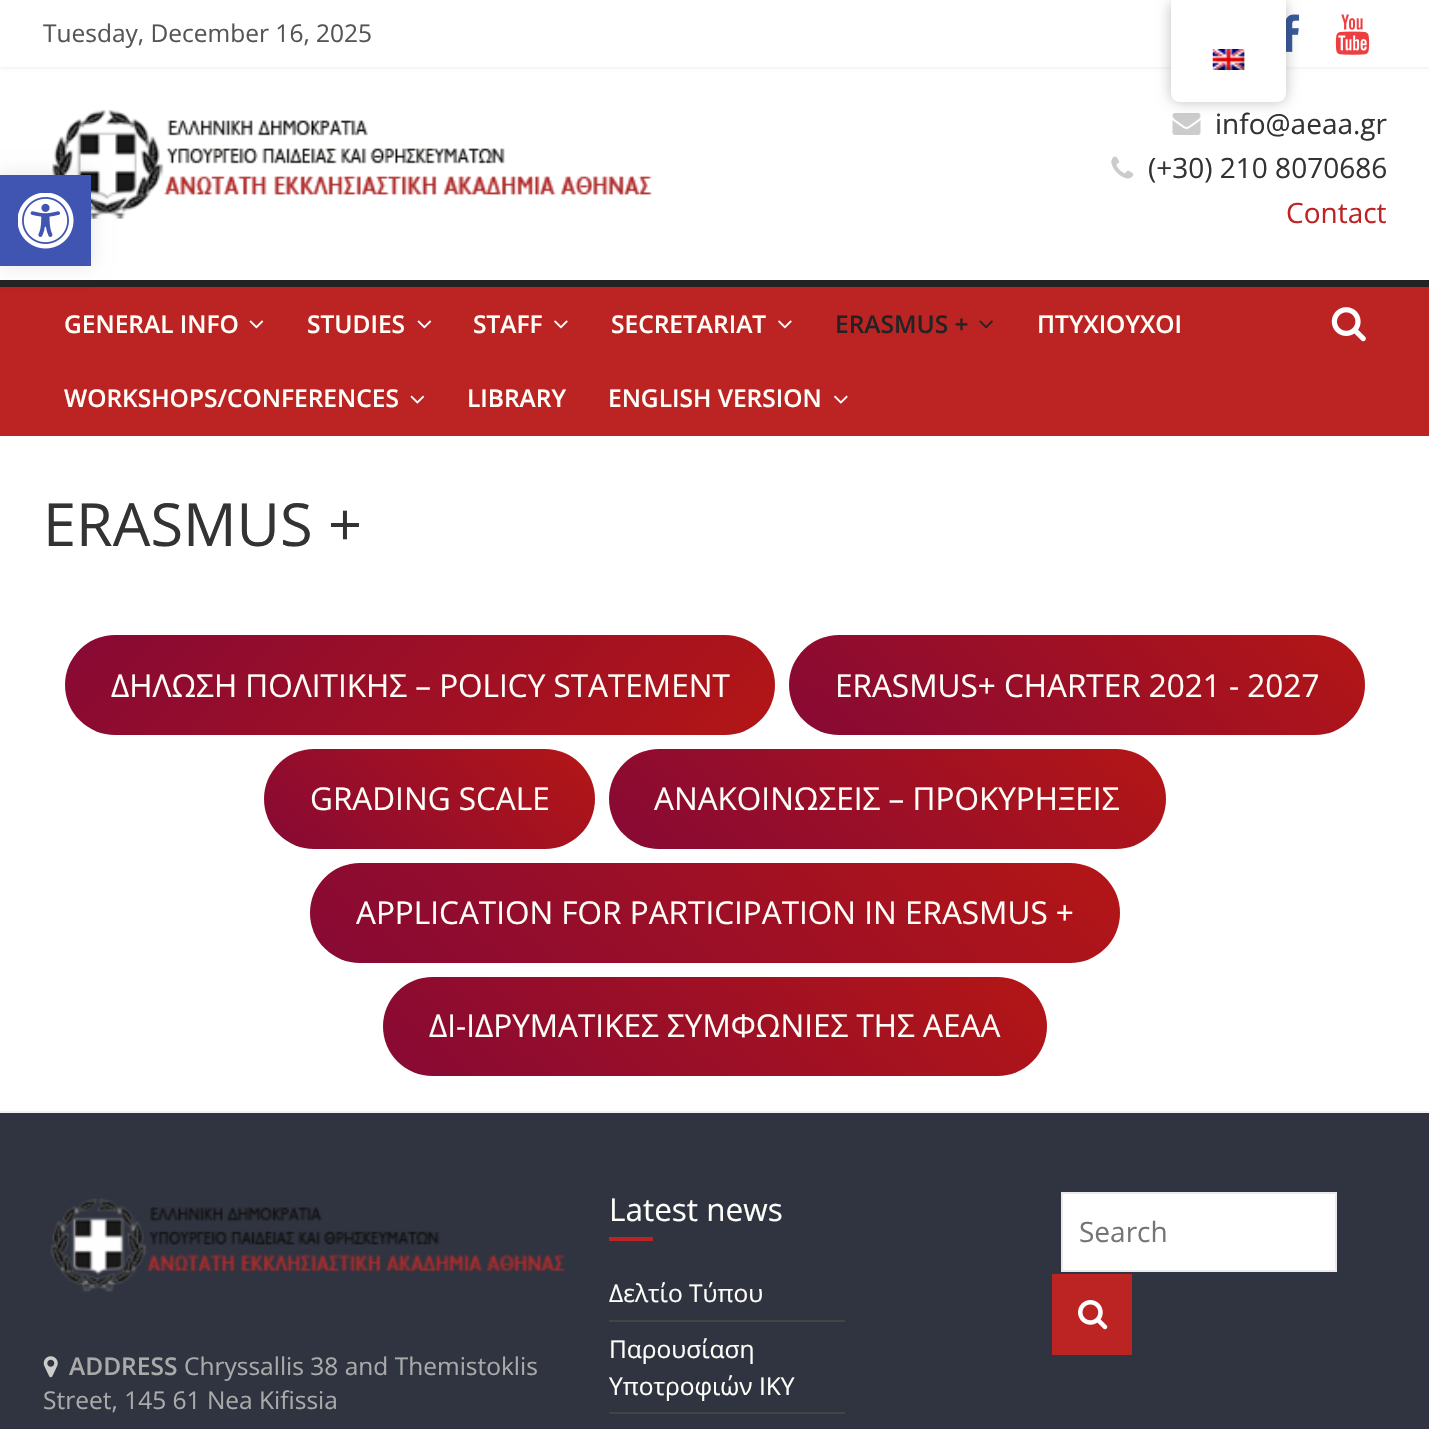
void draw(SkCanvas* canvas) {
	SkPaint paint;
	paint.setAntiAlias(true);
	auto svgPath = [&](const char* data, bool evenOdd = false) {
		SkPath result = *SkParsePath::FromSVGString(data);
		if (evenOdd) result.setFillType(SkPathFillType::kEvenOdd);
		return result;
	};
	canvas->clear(0xffffffff);
	paint.setColor(0x1a000000);
	paint.setMaskFilter(SkMaskFilter::MakeBlur(kNormal_SkBlurStyle, 2));
	canvas->drawRect(SkRect::MakeXYWH(0, 0, 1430, 67), paint);
	paint.setMaskFilter(nullptr);
	paint.setColor(0xffffffff);
	canvas->drawRect(SkRect::MakeXYWH(0, 0, 1429, 67), paint);
	canvas->drawImageRect(SkImages::DeferredFromEncodedData(SkData::MakeFromFileName("img2.png")), SkRect::MakeXYWH(1286, 14, 14, 38), SkSamplingOptions());
	canvas->drawImageRect(SkImages::DeferredFromEncodedData(SkData::MakeFromFileName("img5.png")), SkRect::MakeXYWH(1172, 113, 29, 22), SkSamplingOptions());
	paint.setColor(0x40000000);
	paint.setMaskFilter(SkMaskFilter::MakeBlur(kNormal_SkBlurStyle, 7));
	canvas->drawRoundRect(SkRect::MakeXYWH(1171, 0, 115, 102), 9, 9, paint);
	paint.setMaskFilter(nullptr);
	paint.setColor(0xffffffff);
	canvas->drawPath(svgPath("M1171 0H1286V93C1286 98 1282 102 1277 102H1180C1175 102 1171 98 1171 93Z"), paint);
	canvas->drawImageRect(SkImages::DeferredFromEncodedData(SkData::MakeFromFileName("img1.png")), SkRect::MakeXYWH(1212, 49, 33, 21), SkSamplingOptions());
	SkFont f1(fontMgr->matchFamilyStyle("Open Sans", SkFontStyle::Normal()), 24.5);
	f1.setSubpixel(true);
	paint.setColor(0xff555555);
	canvas->drawString("Tuesday, December 16, 2025", 43, 42, f1, paint);
	canvas->drawImageRect(SkImages::DeferredFromEncodedData(SkData::MakeFromFileName("img3.png")), SkRect::MakeXYWH(1335, 14, 35, 41), SkSamplingOptions());
	canvas->drawImageRect(SkImages::DeferredFromEncodedData(SkData::MakeFromFileName("img4.png")), SkRect::MakeXYWH(52, 109, 600, 110), SkSamplingOptions());
	SkFont f2(fontMgr->matchFamilyStyle("Open Sans", SkFontStyle::Normal()), 28);
	f2.setSubpixel(true);
	paint.setColor(0xff333333);
	canvas->drawString("info@aeaa.gr", 1215, 134, f2, paint);
	canvas->drawImageRect(SkImages::DeferredFromEncodedData(SkData::MakeFromFileName("img6.png")), SkRect::MakeXYWH(1111, 156, 23, 23), SkSamplingOptions());
	canvas->drawString("(+30) 210 8070686", 1148, 178, f2, paint);
	paint.setColor(0xffbc2323);
	canvas->drawString("Contact", 1286, 223, f2, paint);
	canvas->drawRect(SkRect::MakeXYWH(0, 287, 1429, 149), paint);
	paint.setColor(0xff232323);
	canvas->drawRect(SkRect::MakeXYWH(0, 280, 1429, 7), paint);
	SkFont f3(fontMgr->matchFamilyStyle("Open Sans", SkFontStyle(600, SkFontStyle::kNormal_Width, SkFontStyle::kUpright_Slant)), 24.5);
	f3.setSubpixel(true);
	paint.setColor(0xfffffffa);
	canvas->drawString("GENERAL INFO", 64, 333, f3, paint);
	canvas->drawImageRect(SkImages::DeferredFromEncodedData(SkData::MakeFromFileName("img7.png")), SkRect::MakeXYWH(249, 320, 15, 9), SkSamplingOptions());
	canvas->drawString("STUDIES", 307, 333, f3, paint);
	canvas->drawImageRect(SkImages::DeferredFromEncodedData(SkData::MakeFromFileName("img7.png")), SkRect::MakeXYWH(417, 320, 15, 9), SkSamplingOptions());
	canvas->drawString("STAFF", 473, 333, f3, paint);
	canvas->drawImageRect(SkImages::DeferredFromEncodedData(SkData::MakeFromFileName("img8.png")), SkRect::MakeXYWH(554, 320, 14, 9), SkSamplingOptions());
	canvas->drawString("SECRETARIAT", 611, 333, f3, paint);
	canvas->drawImageRect(SkImages::DeferredFromEncodedData(SkData::MakeFromFileName("img8.png")), SkRect::MakeXYWH(778, 320, 14, 9), SkSamplingOptions());
	paint.setColor(0xff232323);
	canvas->drawString("ERASMUS +", 835, 333, f3, paint);
	canvas->drawImageRect(SkImages::DeferredFromEncodedData(SkData::MakeFromFileName("img9.png")), SkRect::MakeXYWH(979, 320, 14, 9), SkSamplingOptions());
	paint.setColor(0xfffffffa);
	canvas->drawString("ΠΤΥΧΙΟΥΧΟΙ", 1037, 333, f3, paint);
	canvas->drawString("WORKSHOPS/CONFERENCES", 64, 407, f3, paint);
	canvas->drawImageRect(SkImages::DeferredFromEncodedData(SkData::MakeFromFileName("img10.png")), SkRect::MakeXYWH(410, 395, 15, 9), SkSamplingOptions());
	canvas->drawString("LIBRARY", 467, 407, f3, paint);
	canvas->drawString("ENGLISH VERSION", 608, 407, f3, paint);
	canvas->drawImageRect(SkImages::DeferredFromEncodedData(SkData::MakeFromFileName("img11.png")), SkRect::MakeXYWH(834, 395, 14, 9), SkSamplingOptions());
	canvas->drawImageRect(SkImages::DeferredFromEncodedData(SkData::MakeFromFileName("img12.png")), SkRect::MakeXYWH(1331, 307, 35, 35), SkSamplingOptions());
	SkFont f4(fontMgr->matchFamilyStyle("Open Sans", SkFontStyle::Normal()), 59.5);
	f4.setSubpixel(true);
	paint.setColor(0xff333333);
	canvas->drawString("ERASMUS +", 43, 546, f4, paint);
	{
		const SkColor colors[] = {0xff870935, 0xffb31616};
		const float stops[] = {0, 1};
		const SkPoint ends[] = {{217, 483}, {623, 888}};
		paint.setShader(SkGradientShader::MakeLinear(ends, colors, stops, 2, SkTileMode::kClamp));
		paint.setAlpha(255);
	}
	canvas->drawRoundRect(SkRect::MakeXYWH(65, 635, 710, 100), 50, 50, paint);
	SkFont f5(fontMgr->matchFamilyStyle("Open Sans", SkFontStyle::Normal()), 31.5);
	f5.setSubpixel(true);
	paint.setShader(nullptr);
	paint.setColor(0xfffffffa);
	canvas->drawString("ΔΗΛΩΣΗ ΠΟΛΙΤΙΚΗΣ – POLICY STATEMENT", 111, 697, f5, paint);
	{
		const SkColor colors[] = {0xff870935, 0xffb31616};
		const float stops[] = {0, 1};
		const SkPoint ends[] = {{923, 856}, {1231, 514}};
		paint.setShader(SkGradientShader::MakeLinear(ends, colors, stops, 2, SkTileMode::kClamp));
		paint.setAlpha(255);
	}
	canvas->drawRoundRect(SkRect::MakeXYWH(789, 635, 576, 100), 50, 50, paint);
	paint.setShader(nullptr);
	paint.setColor(0xfffffffa);
	canvas->drawString("ERASMUS+ CHARTER 2021 - 2027", 835, 697, f5, paint);
	{
		const SkColor colors[] = {0xff870935, 0xffb31616};
		const float stops[] = {0, 1};
		const SkPoint ends[] = {{331, 909}, {528, 689}};
		paint.setShader(SkGradientShader::MakeLinear(ends, colors, stops, 2, SkTileMode::kClamp));
		paint.setAlpha(255);
	}
	canvas->drawRoundRect(SkRect::MakeXYWH(264, 749, 331, 100), 50, 50, paint);
	paint.setShader(nullptr);
	paint.setColor(0xfffffffa);
	canvas->drawString("GRADING SCALE", 310, 810, f5, paint);
	{
		const SkColor colors[] = {0xff870935, 0xffb31616};
		const float stops[] = {0, 1};
		const SkPoint ends[] = {{738, 965}, {1037, 633}};
		paint.setShader(SkGradientShader::MakeLinear(ends, colors, stops, 2, SkTileMode::kClamp));
		paint.setAlpha(255);
	}
	canvas->drawRoundRect(SkRect::MakeXYWH(609, 749, 557, 100), 50, 50, paint);
	paint.setShader(nullptr);
	paint.setColor(0xfffffffa);
	canvas->drawString("ΑΝΑΚΟΙΝΩΣΕΙΣ – ΠΡΟΚΥΡΗΞΕΙΣ", 654, 810, f5, paint);
	{
		const SkColor colors[] = {0xff870935, 0xffb31616};
		const float stops[] = {0, 1};
		const SkPoint ends[] = {{509, 1142}, {921, 684}};
		paint.setShader(SkGradientShader::MakeLinear(ends, colors, stops, 2, SkTileMode::kClamp));
		paint.setAlpha(255);
	}
	canvas->drawRoundRect(SkRect::MakeXYWH(310, 863, 810, 100), 50, 50, paint);
	paint.setShader(nullptr);
	paint.setColor(0xfffffffa);
	canvas->drawString("APPLICATION FOR PARTICIPATION IN ERASMUS +", 356, 924, f5, paint);
	{
		const SkColor colors[] = {0xff870935, 0xffb31616};
		const float stops[] = {0, 1};
		const SkPoint ends[] = {{542, 1219}, {888, 834}};
		paint.setShader(SkGradientShader::MakeLinear(ends, colors, stops, 2, SkTileMode::kClamp));
		paint.setAlpha(255);
	}
	canvas->drawRoundRect(SkRect::MakeXYWH(383, 977, 664, 99), 49.5, 49.5, paint);
	paint.setShader(nullptr);
	paint.setColor(0xfffffffa);
	canvas->drawString("ΔΙ-ΙΔΡΥΜΑΤΙΚΕΣ ΣΥΜΦΩΝΙΕΣ ΤΗΣ ΑΕΑΑ", 429, 1037, f5, paint);
	paint.setColor(0xff303440);
	canvas->drawRect(SkRect::MakeXYWH(0, 1113, 1429, 316), paint);
	paint.setColor(0xfff2f2f2);
	canvas->drawRect(SkRect::MakeXYWH(0, 1111, 1429, 2), paint);
	canvas->drawImageRect(SkImages::DeferredFromEncodedData(SkData::MakeFromFileName("img13.png")), SkRect::MakeXYWH(50, 1198, 516, 94), SkSamplingOptions());
	canvas->drawImageRect(SkImages::DeferredFromEncodedData(SkData::MakeFromFileName("img14.png")), SkRect::MakeXYWH(43, 1356, 15, 22), SkSamplingOptions());
	paint.setColor(0xffaaaaaa);
	canvas->drawString("ADDRESS", 69, 1375, f3, paint);
	canvas->drawString("Chryssallis 38 and Themistoklis", 184, 1375, f1, paint);
	canvas->drawString("Street, 145 61 Nea Kifissia", 43, 1409, f1, paint);
	paint.setColor(0xfffffffa);
	canvas->drawString("Latest news", 609, 1221, f5, paint);
	paint.setColor(0xffbc2323);
	canvas->drawRect(SkRect::MakeXYWH(609, 1237, 44, 4), paint);
	paint.setColor(0xff444444);
	canvas->drawRect(SkRect::MakeXYWH(609, 1320, 236, 2), paint);
	paint.setColor(0xfffffffa);
	canvas->drawString("Δελτίο Τύπου", 609, 1302, f1, paint);
	paint.setColor(0xff444444);
	canvas->drawRect(SkRect::MakeXYWH(609, 1412, 236, 2), paint);
	paint.setColor(0xfffffffa);
	canvas->drawString("Παρουσίαση", 609, 1358, f1, paint);
	canvas->drawString("Υποτροφιών ΙΚΥ", 609, 1395, f1, paint);
	paint.setColor(0xffffffff);
	canvas->drawRect(SkRect::MakeXYWH(1062, 1193, 274, 78), paint);
	paint.setStroke(true);
	paint.setStrokeWidth(2);
	paint.setColor(0xffeaeaea);
	canvas->drawRect(SkRect::MakeXYWH(1062, 1193, 274, 78), paint);
	paint.setStroke(false);
	paint.setColor(0xff757575);
	canvas->drawString("Search", 1079, 1242, f2, paint);
	paint.setColor(0xffbc2323);
	canvas->drawRect(SkRect::MakeXYWH(1052, 1274, 80, 81), paint);
	canvas->drawImageRect(SkImages::DeferredFromEncodedData(SkData::MakeFromFileName("img15.png")), SkRect::MakeXYWH(1078, 1300, 30, 30), SkSamplingOptions());
	paint.setColor(0x1a000000);
	paint.setMaskFilter(SkMaskFilter::MakeBlur(kNormal_SkBlurStyle, 9));
	canvas->drawRect(SkRect::MakeXYWH(0, 175, 91, 91), paint);
	paint.setMaskFilter(nullptr);
	paint.setColor(0xff4054b2);
	canvas->drawRect(SkRect::MakeXYWH(0, 175, 91, 91), paint);
	canvas->drawImageRect(SkImages::DeferredFromEncodedData(SkData::MakeFromFileName("img16.png")), SkRect::MakeXYWH(18, 193, 56, 56), SkSamplingOptions());
}
